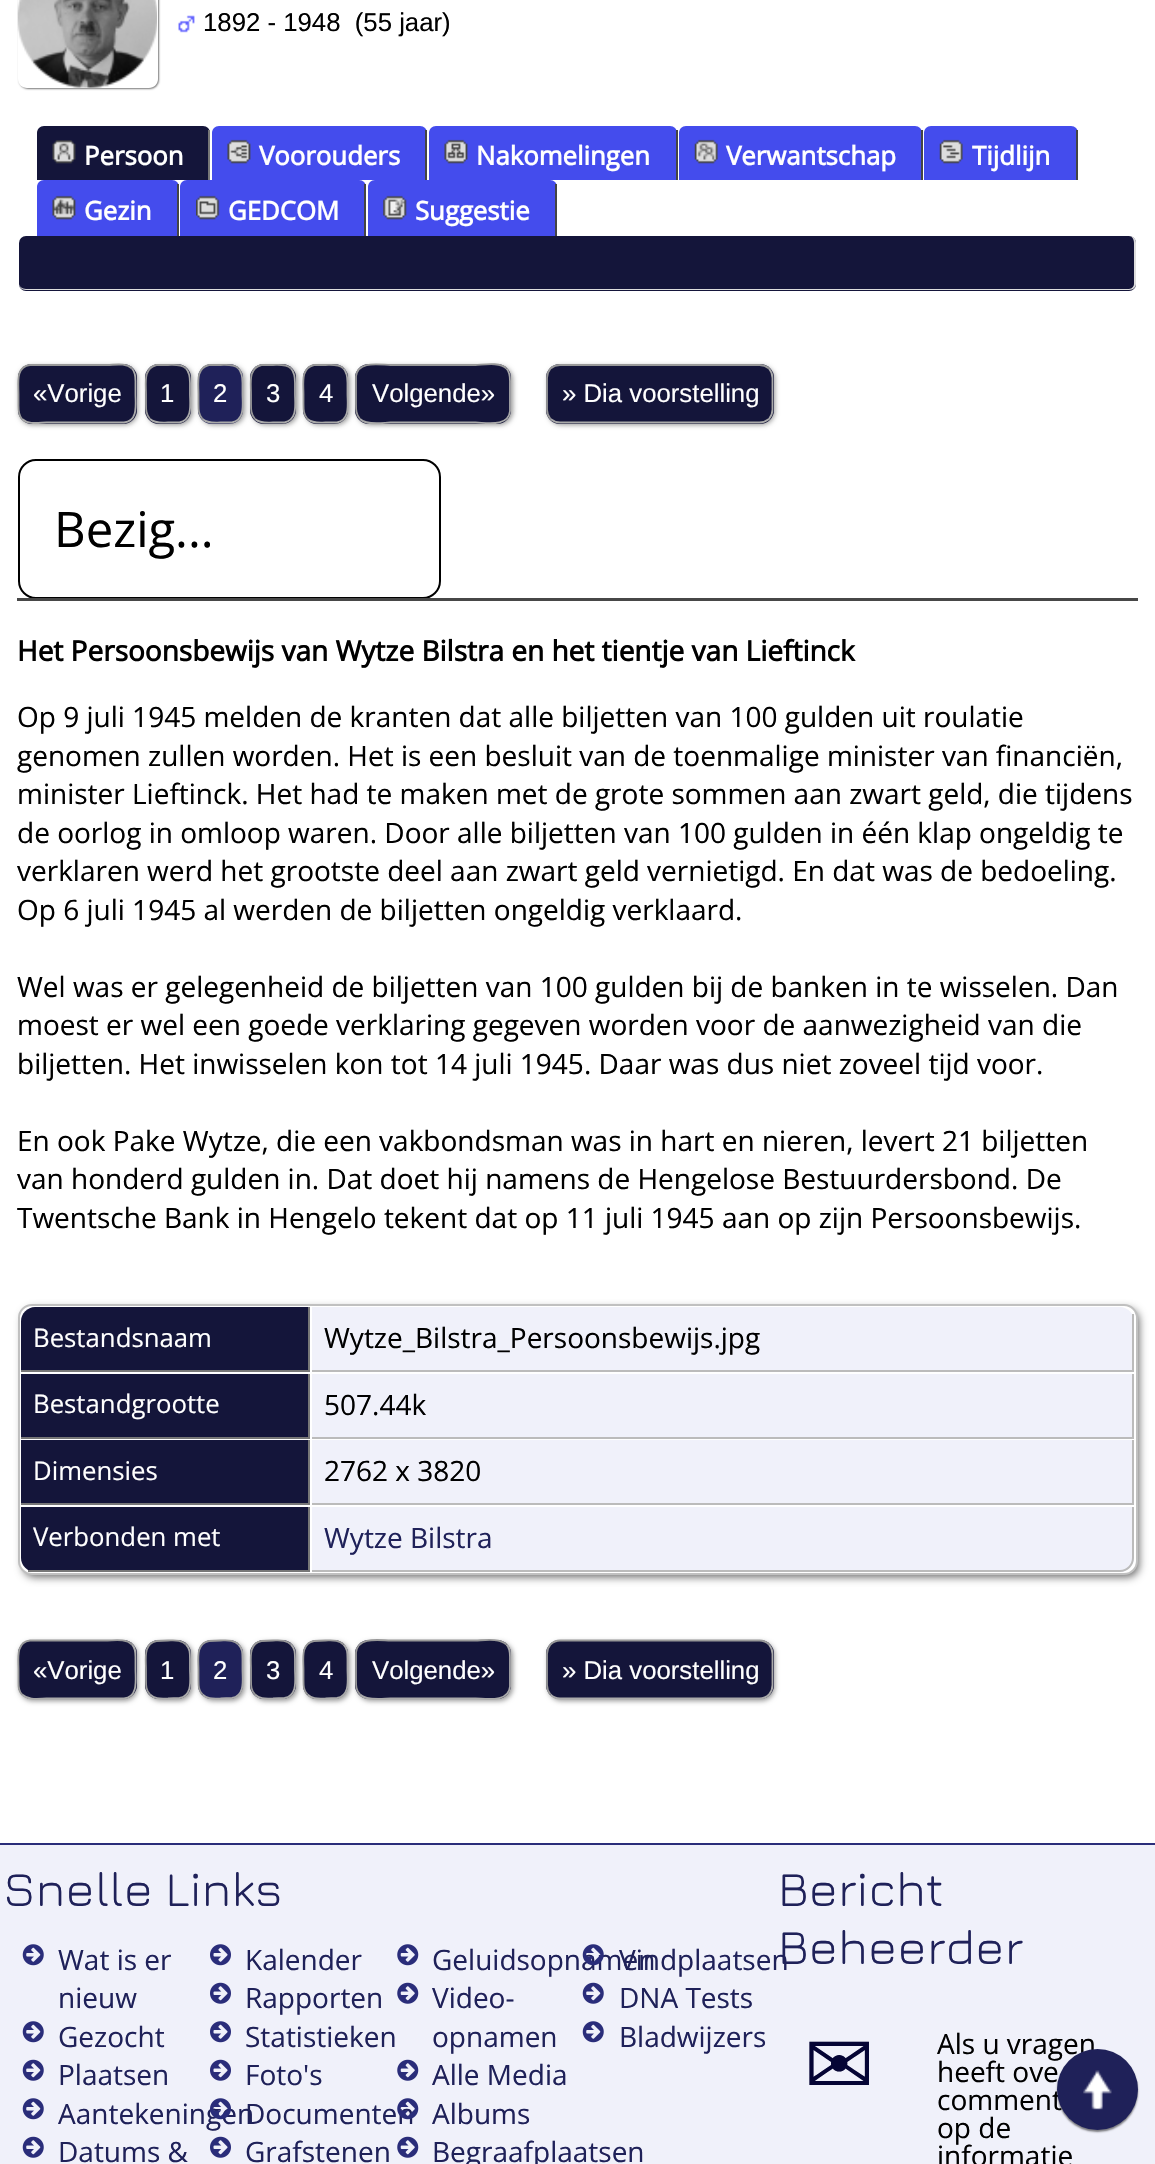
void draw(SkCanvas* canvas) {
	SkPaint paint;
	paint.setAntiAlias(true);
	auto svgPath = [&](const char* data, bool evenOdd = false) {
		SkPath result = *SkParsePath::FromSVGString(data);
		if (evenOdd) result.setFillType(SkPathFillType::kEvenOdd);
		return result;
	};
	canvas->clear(0xffffffff);
	canvas->save();
	canvas->clipPath(svgPath("M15 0H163V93H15ZM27-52H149C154-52 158-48 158-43V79C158 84 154 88 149 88H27C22 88 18 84 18 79V-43C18-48 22-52 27-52Z", true), true);
	paint.setColor(0xff777777);
	paint.setMaskFilter(SkMaskFilter::MakeBlur(kNormal_SkBlurStyle, 1));
	canvas->drawRoundRect(SkRect::MakeXYWH(19, -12, 140, 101), 9, 9, paint);
	paint.setMaskFilter(nullptr);
	canvas->restore();
	canvas->drawImageRect(SkImages::DeferredFromEncodedData(SkData::MakeFromFileName("img1.png")), SkRect::MakeXYWH(17, 0, 140, 88), SkSamplingOptions());
	canvas->drawImageRect(SkImages::DeferredFromEncodedData(SkData::MakeFromFileName("img2.png")), SkRect::MakeXYWH(178, 15, 17, 18), SkSamplingOptions());
	SkFont f1(fontMgr->matchFamilyStyle("Liberation Sans", SkFontStyle::Normal()), 25.75);
	f1.setSubpixel(true);
	paint.setColor(0xff000000);
	canvas->drawString("1892 - 1948  (55 jaar)", 203, 31, f1, paint);
	paint.setColor(0xff14153a);
	canvas->drawPath(svgPath("M44 126H203C207 126 210 129 210 133V180H37V133C37 129 40 126 44 126Z"), paint);
	paint.setColor(0xff777777);
	canvas->drawRect(SkRect::MakeXYWH(208, 130, 2, 50), paint);
	canvas->drawImageRect(SkImages::DeferredFromEncodedData(SkData::MakeFromFileName("img3.png")), SkRect::MakeXYWH(52, 140, 24, 24), SkSamplingOptions());
	SkFont f2(fontMgr->matchFamilyStyle("Open Sans", SkFontStyle::Bold()), 25.75);
	f2.setSubpixel(true);
	paint.setColor(0xffffffff);
	canvas->drawString("Persoon", 84, 165, f2, paint);
	paint.setColor(0xff444ced);
	canvas->drawPath(svgPath("M219 126H420C424 126 427 129 427 133V180H212V133C212 129 215 126 219 126Z"), paint);
	paint.setColor(0xff444444);
	canvas->drawRect(SkRect::MakeXYWH(425, 130, 2, 50), paint);
	canvas->drawImageRect(SkImages::DeferredFromEncodedData(SkData::MakeFromFileName("img4.png")), SkRect::MakeXYWH(227, 139, 24, 25), SkSamplingOptions());
	paint.setColor(0xffffffff);
	canvas->drawString("Voorouders", 259, 165, f2, paint);
	paint.setColor(0xff444ced);
	canvas->drawPath(svgPath("M436 126H670C674 126 677 129 677 133V180H429V133C429 129 432 126 436 126Z"), paint);
	paint.setColor(0xff444444);
	canvas->drawRect(SkRect::MakeXYWH(676, 130, 2, 50), paint);
	canvas->drawImageRect(SkImages::DeferredFromEncodedData(SkData::MakeFromFileName("img5.png")), SkRect::MakeXYWH(444, 139, 24, 25), SkSamplingOptions());
	paint.setColor(0xffffffff);
	canvas->drawString("Nakomelingen", 476, 165, f2, paint);
	paint.setColor(0xff444ced);
	canvas->drawPath(svgPath("M686 126H915C919 126 922 129 922 133V180H679V133C679 129 682 126 686 126Z"), paint);
	paint.setColor(0xff444444);
	canvas->drawRect(SkRect::MakeXYWH(921, 130, 2, 50), paint);
	canvas->drawImageRect(SkImages::DeferredFromEncodedData(SkData::MakeFromFileName("img6.png")), SkRect::MakeXYWH(694, 139, 24, 25), SkSamplingOptions());
	paint.setColor(0xffffffff);
	canvas->drawString("Verwantschap", 726, 165, f2, paint);
	paint.setColor(0xff444ced);
	canvas->drawPath(svgPath("M931 126H1071C1075 126 1078 129 1078 133V180H924V133C924 129 927 126 931 126Z"), paint);
	paint.setColor(0xff444444);
	canvas->drawRect(SkRect::MakeXYWH(1076, 130, 2, 50), paint);
	canvas->drawImageRect(SkImages::DeferredFromEncodedData(SkData::MakeFromFileName("img7.png")), SkRect::MakeXYWH(939, 139, 24, 25), SkSamplingOptions());
	paint.setColor(0xffffffff);
	canvas->drawString("Tijdlijn", 972, 165, f2, paint);
	paint.setColor(0xff444ced);
	canvas->drawPath(svgPath("M44 180H172C176 180 179 183 179 187V236H37V187C37 183 40 180 44 180Z"), paint);
	paint.setColor(0xff444444);
	canvas->drawRect(SkRect::MakeXYWH(177, 184, 2, 52), paint);
	canvas->drawImageRect(SkImages::DeferredFromEncodedData(SkData::MakeFromFileName("img8.png")), SkRect::MakeXYWH(52, 195, 24, 25), SkSamplingOptions());
	paint.setColor(0xffffffff);
	canvas->drawString("Gezin", 84, 220, f2, paint);
	paint.setColor(0xff444ced);
	canvas->drawPath(svgPath("M187 180H359C363 180 366 183 366 187V236H180V187C180 183 183 180 187 180Z"), paint);
	paint.setColor(0xff444444);
	canvas->drawRect(SkRect::MakeXYWH(364, 184, 2, 52), paint);
	canvas->drawImageRect(SkImages::DeferredFromEncodedData(SkData::MakeFromFileName("img9.png")), SkRect::MakeXYWH(196, 195, 24, 25), SkSamplingOptions());
	paint.setColor(0xffffffff);
	canvas->drawString("GEDCOM", 228, 220, f2, paint);
	paint.setColor(0xff444ced);
	canvas->drawPath(svgPath("M375 180H550C554 180 557 183 557 187V236H368V187C368 183 371 180 375 180Z"), paint);
	paint.setColor(0xff444444);
	canvas->drawRect(SkRect::MakeXYWH(555, 184, 2, 52), paint);
	canvas->drawImageRect(SkImages::DeferredFromEncodedData(SkData::MakeFromFileName("img10.png")), SkRect::MakeXYWH(383, 195, 24, 25), SkSamplingOptions());
	paint.setColor(0xffffffff);
	canvas->drawString("Suggestie", 415, 220, f2, paint);
	paint.setColor(0xff14153a);
	canvas->drawRoundRect(SkRect::MakeXYWH(19, 236, 1117, 55), 7, 7, paint);
	paint.setColor(0xffdddddd);
	canvas->drawPath(svgPath("M26 236H1129C1133 236 1136 239 1136 243V284C1136 287 1133 290 1129 290H26C22 290 19 287 19 284V243C19 239 22 236 26 236ZM26 236H1129C1132 236 1134 239 1134 243V284C1134 286 1132 289 1129 289H26C22 289 19 286 19 284V243C19 239 22 236 26 236Z", true), paint);
	paint.setColor(0xff999999);
	paint.setMaskFilter(SkMaskFilter::MakeBlur(kNormal_SkBlurStyle, 2.5));
	canvas->drawRoundRect(SkRect::MakeXYWH(19, 366, 119, 59), 14, 14, paint);
	paint.setMaskFilter(nullptr);
	paint.setColor(0xff14153a);
	canvas->drawRoundRect(SkRect::MakeXYWH(18, 364, 119, 60), 14, 14, paint);
	paint.setStroke(true);
	paint.setStrokeWidth(1.8);
	paint.setColor(0xffaaaaaa);
	canvas->drawPath(svgPath("M132 368.5C136 373 135.5 378 135.5 383V394C135.5 404 138.5 421 124 422.5H46.5C39.5 422.5 28.5 425 22 419"), paint);
	paint.setColor(0xff999999);
	canvas->drawPath(svgPath("M22 419C18 414.5 18.5 409.5 18.5 404V394C18.5 383.5 15.5 366.5 30 365H107.5C114.5 365 125.5 362.5 132 368.5"), paint);
	paint.setStroke(false);
	paint.setColor(0xffffffff);
	canvas->drawString("«Vorige", 33, 402, f1, paint);
	paint.setColor(0xff999999);
	paint.setMaskFilter(SkMaskFilter::MakeBlur(kNormal_SkBlurStyle, 2.5));
	canvas->drawRoundRect(SkRect::MakeXYWH(147, 366, 46, 59), 14, 14, paint);
	paint.setMaskFilter(nullptr);
	paint.setColor(0xff14153a);
	canvas->drawRoundRect(SkRect::MakeXYWH(145, 364, 46, 60), 14, 14, paint);
	paint.setStroke(true);
	paint.setColor(0xffaaaaaa);
	canvas->drawPath(svgPath("M186 368.5C190 373 190 378 190 383V394C190 404 193 419.5 179.5 422.5H168C161.5 422.5 155 423.5 150 419"), paint);
	paint.setColor(0xff999999);
	canvas->drawPath(svgPath("M150 419C146 414.5 146 409.5 146 404V394C146 383.5 143 368 156.5 365H168C174.5 365 181 364 186 368.5"), paint);
	paint.setStroke(false);
	paint.setColor(0xffffffff);
	canvas->drawString("1", 160, 402, f1, paint);
	paint.setColor(0xff999999);
	paint.setMaskFilter(SkMaskFilter::MakeBlur(kNormal_SkBlurStyle, 2.5));
	canvas->drawRoundRect(SkRect::MakeXYWH(200, 366, 45, 59), 14, 14, paint);
	paint.setMaskFilter(nullptr);
	paint.setColor(0xff1f2159);
	canvas->drawRoundRect(SkRect::MakeXYWH(198, 364, 45, 60), 14, 14, paint);
	paint.setStroke(true);
	paint.setColor(0xffaaaaaa);
	canvas->drawPath(svgPath("M238.5 368.5C242.5 373 242.5 378 242.5 383V394C242.5 404 245.5 419.5 232 422.5H220.5C214 422.5 207.5 423.5 202.5 419"), paint);
	paint.setColor(0xff999999);
	canvas->drawPath(svgPath("M202.5 419C198.5 414.5 198.5 409.5 198.5 404V394C198.5 383.5 195.5 368 209 365H220.5C227 365 233.5 364 238.5 368.5"), paint);
	paint.setStroke(false);
	paint.setColor(0xffffffff);
	canvas->drawString("2", 213, 402, f1, paint);
	paint.setColor(0xff999999);
	paint.setMaskFilter(SkMaskFilter::MakeBlur(kNormal_SkBlurStyle, 2.5));
	canvas->drawRoundRect(SkRect::MakeXYWH(252, 366, 46, 59), 14, 14, paint);
	paint.setMaskFilter(nullptr);
	paint.setColor(0xff14153a);
	canvas->drawRoundRect(SkRect::MakeXYWH(250, 364, 46, 60), 14, 14, paint);
	paint.setStroke(true);
	paint.setColor(0xffaaaaaa);
	canvas->drawPath(svgPath("M291 368.5C295 373 295 378 295 383V394C295 404 298 419.5 284.5 422.5H273C266.5 422.5 260 423.5 255 419"), paint);
	paint.setColor(0xff999999);
	canvas->drawPath(svgPath("M255 419C251 414.5 251 409.5 251 404V394C251 383.5 248 368 261.5 365H273C279.5 365 286 364 291 368.5"), paint);
	paint.setStroke(false);
	paint.setColor(0xffffffff);
	canvas->drawString("3", 266, 402, f1, paint);
	paint.setColor(0xff999999);
	paint.setMaskFilter(SkMaskFilter::MakeBlur(kNormal_SkBlurStyle, 2.5));
	canvas->drawRoundRect(SkRect::MakeXYWH(305, 366, 45, 59), 14, 14, paint);
	paint.setMaskFilter(nullptr);
	paint.setColor(0xff14153a);
	canvas->drawRoundRect(SkRect::MakeXYWH(303, 364, 45, 60), 14, 14, paint);
	paint.setStroke(true);
	paint.setColor(0xffaaaaaa);
	canvas->drawPath(svgPath("M343.5 368.5C347.5 373 347.5 378 347.5 383V394C347.5 404 350.5 419.5 337 422.5H325.5C319 422.5 312.5 423.5 307.5 419"), paint);
	paint.setColor(0xff999999);
	canvas->drawPath(svgPath("M307.5 419C303.5 414.5 303.5 409.5 303.5 404V394C303.5 383.5 300.5 368 314 365H325.5C332 365 338.5 364 343.5 368.5"), paint);
	paint.setStroke(false);
	paint.setColor(0xffffffff);
	canvas->drawString("4", 319, 402, f1, paint);
	paint.setColor(0xff999999);
	paint.setMaskFilter(SkMaskFilter::MakeBlur(kNormal_SkBlurStyle, 2.5));
	canvas->drawRoundRect(SkRect::MakeXYWH(357, 366, 156, 59), 14, 14, paint);
	paint.setMaskFilter(nullptr);
	paint.setColor(0xff14153a);
	canvas->drawRoundRect(SkRect::MakeXYWH(355, 364, 156, 60), 14, 14, paint);
	paint.setStroke(true);
	paint.setColor(0xffaaaaaa);
	canvas->drawPath(svgPath("M506.5 368.5C510.5 373 510 378 510 383V411C508.5 427.5 485.5 422.5 475.5 422.5H390.5C384 422.5 367 426 360 419"), paint);
	paint.setColor(0xff999999);
	canvas->drawPath(svgPath("M360 419C356 414.5 356 409.5 356 404V376.5C358 360 380.5 365 390.5 365H475.5C482.5 365 499 361.5 506.5 368.5"), paint);
	paint.setStroke(false);
	paint.setColor(0xffffffff);
	canvas->drawString("Volgende»", 372, 402, f1, paint);
	paint.setColor(0xff999999);
	paint.setMaskFilter(SkMaskFilter::MakeBlur(kNormal_SkBlurStyle, 2.5));
	canvas->drawRoundRect(SkRect::MakeXYWH(548, 366, 227, 59), 14, 14, paint);
	paint.setMaskFilter(nullptr);
	paint.setColor(0xff14153a);
	canvas->drawRoundRect(SkRect::MakeXYWH(546, 364, 228, 60), 14, 14, paint);
	paint.setStroke(true);
	paint.setColor(0xffaaaaaa);
	canvas->drawPath(svgPath("M769 368.5C771 371 772.5 374.5 772.5 378V409.5C772.5 413 771 416.5 769 419C766.5 421 763 422.5 759.5 422.5H560C556.5 422.5 553 421 550.5 419"), paint);
	paint.setColor(0xff999999);
	canvas->drawPath(svgPath("M550.5 419C548.5 416.5 547 413 547 409.5V378C547 374.5 548.5 371 550.5 368.5C553 366.5 556.5 365 560 365H759.5C763 365 766.5 366.5 769 368.5"), paint);
	paint.setStroke(false);
	paint.setColor(0xffffffff);
	canvas->drawString("» Dia voorstelling", 562, 402, f1, paint);
	paint.setStroke(true);
	paint.setStrokeWidth(2);
	paint.setColor(0xff000000);
	canvas->drawRoundRect(SkRect::MakeXYWH(19, 460, 421, 138), 17, 17, paint);
	SkFont f3(fontMgr->matchFamilyStyle("Open Sans", SkFontStyle::Normal()), 49);
	f3.setSubpixel(true);
	paint.setStroke(false);
	canvas->drawString("Bezig...", 54, 547, f3, paint);
	paint.setColor(0xff474747);
	canvas->drawRect(SkRect::MakeXYWH(17, 598, 1121, 3), paint);
	SkFont f4(fontMgr->matchFamilyStyle("Open Sans", SkFontStyle::Bold()), 28);
	f4.setSubpixel(true);
	paint.setColor(0xff000000);
	canvas->drawString("Het Persoonsbewijs van Wytze Bilstra en het tientje van Lieftinck", 17, 661, f4, paint);
	SkFont f5(fontMgr->matchFamilyStyle("Open Sans", SkFontStyle::Normal()), 28);
	f5.setSubpixel(true);
	canvas->drawString("Op 9 juli 1945 melden de kranten dat alle biljetten van 100 gulden uit roulatie", 17, 727, f5, paint);
	canvas->drawString("genomen zullen worden. Het is een besluit van de toenmalige minister van financiën,", 17, 766, f5, paint);
	canvas->drawString("minister Lieftinck. Het had te maken met de grote sommen aan zwart geld, die tijdens", 17, 804, f5, paint);
	canvas->drawString("de oorlog in omloop waren. Door alle biljetten van 100 gulden in één klap ongeldig te", 17, 843, f5, paint);
	canvas->drawString("verklaren werd het grootste deel aan zwart geld vernietigd. En dat was de bedoeling.", 17, 881, f5, paint);
	canvas->drawString("Op 6 juli 1945 al werden de biljetten ongeldig verklaard.", 17, 920, f5, paint);
	canvas->drawString("Wel was er gelegenheid de biljetten van 100 gulden bij de banken in te wisselen. Dan", 17, 997, f5, paint);
	canvas->drawString("moest er wel een goede verklaring gegeven worden voor de aanwezigheid van die", 17, 1035, f5, paint);
	canvas->drawString("biljetten. Het inwisselen kon tot 14 juli 1945. Daar was dus niet zoveel tijd voor.", 17, 1074, f5, paint);
	canvas->drawString("En ook Pake Wytze, die een vakbondsman was in hart en nieren, levert 21 biljetten", 17, 1151, f5, paint);
	canvas->drawString("van honderd gulden in. Dat doet hij namens de Hengelose Bestuurdersbond. De", 17, 1189, f5, paint);
	canvas->drawString("Twentsche Bank in Hengelo tekent dat op 11 juli 1945 aan op zijn Persoonsbewijs.", 17, 1228, f5, paint);
	paint.setColor(0xff666666);
	paint.setMaskFilter(SkMaskFilter::MakeBlur(kNormal_SkBlurStyle, 4.5));
	canvas->drawRoundRect(SkRect::MakeXYWH(23, 1309, 1116, 268), 12, 12, paint);
	paint.setMaskFilter(nullptr);
	paint.setColor(0xffffffff);
	canvas->drawRoundRect(SkRect::MakeXYWH(19, 1305, 1118, 269), 13, 13, paint);
	paint.setStroke(true);
	paint.setColor(0xffc0c0c0);
	canvas->drawRoundRect(SkRect::MakeXYWH(19, 1305, 1118, 269), 13, 13, paint);
	paint.setStroke(false);
	paint.setColor(0xff14153a);
	canvas->drawPath(svgPath("M35 1307H310V1372H21V1321C21 1313.5 27.5 1307 35 1307Z"), paint);
	paint.setColor(0xff777777);
	canvas->drawRect(SkRect::MakeXYWH(308, 1307, 2, 65), paint);
	canvas->drawRect(SkRect::MakeXYWH(21, 1370, 289, 2), paint);
	SkFont f6(fontMgr->matchFamilyStyle("Open Sans", SkFontStyle::Normal()), 25.75);
	f6.setSubpixel(true);
	paint.setColor(0xffffffff);
	canvas->drawString("Bestandsnaam", 33, 1347, f6, paint);
	paint.setColor(0xfff0f1fa);
	canvas->drawPath(svgPath("M312 1307H1120C1127.5 1307 1134 1313.5 1134 1321V1372H312Z"), paint);
	paint.setColor(0xffbbbbbb);
	canvas->drawRect(SkRect::MakeXYWH(1132, 1314, 2, 58), paint);
	canvas->drawRect(SkRect::MakeXYWH(312, 1370, 822, 2), paint);
	paint.setColor(0xff000000);
	canvas->drawString("Wytze_Bilstra_Persoonsbewijs.jpg", 324, 1348, f5, paint);
	paint.setColor(0xff14153a);
	canvas->drawRect(SkRect::MakeXYWH(21, 1374, 287, 63), paint);
	paint.setColor(0xff777777);
	canvas->drawRect(SkRect::MakeXYWH(308, 1374, 2, 65), paint);
	canvas->drawRect(SkRect::MakeXYWH(21, 1437, 289, 2), paint);
	paint.setColor(0xffffffff);
	canvas->drawString("Bestandgrootte", 33, 1413, f6, paint);
	paint.setColor(0xfff0f1fa);
	canvas->drawRect(SkRect::MakeXYWH(312, 1374, 820, 63), paint);
	paint.setColor(0xffbbbbbb);
	canvas->drawRect(SkRect::MakeXYWH(1132, 1374, 2, 65), paint);
	canvas->drawRect(SkRect::MakeXYWH(312, 1437, 822, 2), paint);
	paint.setColor(0xff000000);
	canvas->drawString("507.44k", 324, 1415, f5, paint);
	paint.setColor(0xff14153a);
	canvas->drawRect(SkRect::MakeXYWH(21, 1440, 287, 63), paint);
	paint.setColor(0xff777777);
	canvas->drawRect(SkRect::MakeXYWH(308, 1440, 2, 65), paint);
	canvas->drawRect(SkRect::MakeXYWH(21, 1503, 289, 2), paint);
	paint.setColor(0xffffffff);
	canvas->drawString("Dimensies", 33, 1480, f6, paint);
	paint.setColor(0xfff0f1fa);
	canvas->drawRect(SkRect::MakeXYWH(312, 1440, 820, 63), paint);
	paint.setColor(0xffbbbbbb);
	canvas->drawRect(SkRect::MakeXYWH(1132, 1440, 2, 65), paint);
	canvas->drawRect(SkRect::MakeXYWH(312, 1503, 822, 2), paint);
	paint.setColor(0xff000000);
	canvas->drawString("2762 x 3820", 324, 1481, f5, paint);
	paint.setColor(0xff14153a);
	canvas->drawPath(svgPath("M21 1507H310V1572H35C27.5 1572 21 1565.5 21 1558Z"), paint);
	paint.setColor(0xff777777);
	canvas->drawRect(SkRect::MakeXYWH(308, 1507, 2, 65), paint);
	canvas->drawRect(SkRect::MakeXYWH(28, 1570, 282, 2), paint);
	paint.setColor(0xffffffff);
	canvas->drawString("Verbonden met", 33, 1546, f6, paint);
	paint.setColor(0xfff0f1fa);
	canvas->drawPath(svgPath("M312 1507H1134V1558C1134 1565.5 1127.5 1572 1120 1572H312Z"), paint);
	paint.setColor(0xffbbbbbb);
	canvas->drawPath(svgPath("M312 1507H1134V1558C1134 1565 1128 1572 1120 1572H312ZM312 1507H1132V1558C1132 1564 1127 1570 1120 1570H312Z", true), paint);
	paint.setColor(0xff1f2159);
	canvas->drawString("Wytze Bilstra", 324, 1548, f5, paint);
	paint.setColor(0xff999999);
	paint.setMaskFilter(SkMaskFilter::MakeBlur(kNormal_SkBlurStyle, 2.5));
	canvas->drawRoundRect(SkRect::MakeXYWH(19, 1642, 119, 59), 14, 14, paint);
	paint.setMaskFilter(nullptr);
	paint.setColor(0xff14153a);
	canvas->drawRoundRect(SkRect::MakeXYWH(18, 1640, 119, 59), 14, 14, paint);
	paint.setStroke(true);
	paint.setStrokeWidth(1.8);
	paint.setColor(0xffaaaaaa);
	canvas->drawPath(svgPath("M132 1644.5C136 1648.5 135.5 1653.5 135.5 1659V1669.5C135.5 1679.5 138.5 1697 124 1698.5H46.5C39.5 1698.5 28.5 1700.5 22 1694.5"), paint);
	paint.setColor(0xff999999);
	canvas->drawPath(svgPath("M22 1694.5C18 1690.5 18.5 1685.5 18.5 1680V1669.5C18.5 1659.5 15.5 1642 30 1640.5H107.5C114.5 1640.5 125.5 1638.5 132 1644.5"), paint);
	paint.setStroke(false);
	paint.setColor(0xffffffff);
	canvas->drawString("«Vorige", 33, 1679, f1, paint);
	paint.setColor(0xff999999);
	paint.setMaskFilter(SkMaskFilter::MakeBlur(kNormal_SkBlurStyle, 2.5));
	canvas->drawRoundRect(SkRect::MakeXYWH(147, 1642, 46, 59), 14, 14, paint);
	paint.setMaskFilter(nullptr);
	paint.setColor(0xff14153a);
	canvas->drawRoundRect(SkRect::MakeXYWH(145, 1640, 46, 59), 14, 14, paint);
	paint.setStroke(true);
	paint.setColor(0xffaaaaaa);
	canvas->drawPath(svgPath("M186 1644.5C190 1648.5 190 1653.5 190 1659V1669.5C190 1679.5 193 1695.5 179.5 1698L168 1698.5C161.5 1698.5 155 1699.5 150 1694.5"), paint);
	paint.setColor(0xff999999);
	canvas->drawPath(svgPath("M150 1694.5C146 1690.5 146 1685.5 146 1680V1669.5C146 1659.5 143 1643.5 156.5 1641L168 1640.5C174.5 1640.5 181 1639.5 186 1644.5"), paint);
	paint.setStroke(false);
	paint.setColor(0xffffffff);
	canvas->drawString("1", 160, 1679, f1, paint);
	paint.setColor(0xff999999);
	paint.setMaskFilter(SkMaskFilter::MakeBlur(kNormal_SkBlurStyle, 2.5));
	canvas->drawRoundRect(SkRect::MakeXYWH(200, 1642, 45, 59), 14, 14, paint);
	paint.setMaskFilter(nullptr);
	paint.setColor(0xff1f2159);
	canvas->drawRoundRect(SkRect::MakeXYWH(198, 1640, 45, 59), 14, 14, paint);
	paint.setStroke(true);
	paint.setColor(0xffaaaaaa);
	canvas->drawPath(svgPath("M238.5 1644.5C242.5 1648.5 242.5 1653.5 242.5 1659V1669.5C242.5 1679.5 245.5 1695.5 232 1698L220.5 1698.5C214 1698.5 207.5 1699.5 202.5 1694.5"), paint);
	paint.setColor(0xff999999);
	canvas->drawPath(svgPath("M202.5 1694.5C198.5 1690.5 198.5 1685.5 198.5 1680V1669.5C198.5 1659.5 195.5 1643.5 209 1641L220.5 1640.5C227 1640.5 233.5 1639.5 238.5 1644.5"), paint);
	paint.setStroke(false);
	paint.setColor(0xffffffff);
	canvas->drawString("2", 213, 1679, f1, paint);
	paint.setColor(0xff999999);
	paint.setMaskFilter(SkMaskFilter::MakeBlur(kNormal_SkBlurStyle, 2.5));
	canvas->drawRoundRect(SkRect::MakeXYWH(252, 1642, 46, 59), 14, 14, paint);
	paint.setMaskFilter(nullptr);
	paint.setColor(0xff14153a);
	canvas->drawRoundRect(SkRect::MakeXYWH(250, 1640, 46, 59), 14, 14, paint);
	paint.setStroke(true);
	paint.setColor(0xffaaaaaa);
	canvas->drawPath(svgPath("M291 1644.5C295 1648.5 295 1653.5 295 1659V1669.5C295 1679.5 298 1695.5 284.5 1698L273 1698.5C266.5 1698.5 260 1699.5 255 1694.5"), paint);
	paint.setColor(0xff999999);
	canvas->drawPath(svgPath("M255 1694.5C251 1690.5 251 1685.5 251 1680V1669.5C251 1659.5 248 1643.5 261.5 1641L273 1640.5C279.5 1640.5 286 1639.5 291 1644.5"), paint);
	paint.setStroke(false);
	paint.setColor(0xffffffff);
	canvas->drawString("3", 266, 1679, f1, paint);
	paint.setColor(0xff999999);
	paint.setMaskFilter(SkMaskFilter::MakeBlur(kNormal_SkBlurStyle, 2.5));
	canvas->drawRoundRect(SkRect::MakeXYWH(305, 1642, 45, 59), 14, 14, paint);
	paint.setMaskFilter(nullptr);
	paint.setColor(0xff14153a);
	canvas->drawRoundRect(SkRect::MakeXYWH(303, 1640, 45, 59), 14, 14, paint);
	paint.setStroke(true);
	paint.setColor(0xffaaaaaa);
	canvas->drawPath(svgPath("M343.5 1644.5C347.5 1648.5 347.5 1653.5 347.5 1659V1669.5C347.5 1679.5 350.5 1695.5 337 1698L325.5 1698.5C319 1698.5 312.5 1699.5 307.5 1694.5"), paint);
	paint.setColor(0xff999999);
	canvas->drawPath(svgPath("M307.5 1694.5C303.5 1690.5 303.5 1685.5 303.5 1680V1669.5C303.5 1659.5 300.5 1643.5 314 1641L325.5 1640.5C332 1640.5 338.5 1639.5 343.5 1644.5"), paint);
	paint.setStroke(false);
	paint.setColor(0xffffffff);
	canvas->drawString("4", 319, 1679, f1, paint);
	paint.setColor(0xff999999);
	paint.setMaskFilter(SkMaskFilter::MakeBlur(kNormal_SkBlurStyle, 2.5));
	canvas->drawRoundRect(SkRect::MakeXYWH(357, 1642, 156, 59), 14, 14, paint);
	paint.setMaskFilter(nullptr);
	paint.setColor(0xff14153a);
	canvas->drawRoundRect(SkRect::MakeXYWH(355, 1640, 156, 59), 14, 14, paint);
	paint.setStroke(true);
	paint.setColor(0xffaaaaaa);
	canvas->drawPath(svgPath("M506.5 1644.5C510.5 1648.5 510 1653.5 510 1659V1686.5C508.5 1703 485.5 1698.5 475.5 1698.5H390.5C384 1698.5 367 1701.5 360 1694.5"), paint);
	paint.setColor(0xff999999);
	canvas->drawPath(svgPath("M360 1694.5C356 1690.5 356 1685.5 356 1680V1652.5C358 1636 380.5 1640.5 390.5 1640.5H475.5C482.5 1640.5 499 1637.5 506.5 1644.5"), paint);
	paint.setStroke(false);
	paint.setColor(0xffffffff);
	canvas->drawString("Volgende»", 372, 1679, f1, paint);
	paint.setColor(0xff999999);
	paint.setMaskFilter(SkMaskFilter::MakeBlur(kNormal_SkBlurStyle, 2.5));
	canvas->drawRoundRect(SkRect::MakeXYWH(548, 1642, 227, 59), 14, 14, paint);
	paint.setMaskFilter(nullptr);
	paint.setColor(0xff14153a);
	canvas->drawRoundRect(SkRect::MakeXYWH(546, 1640, 228, 59), 14, 14, paint);
	paint.setStroke(true);
	paint.setColor(0xffaaaaaa);
	canvas->drawPath(svgPath("M769 1644.5C771 1647 772.5 1650.5 772.5 1654V1685C772.5 1688.5 771 1692 769 1694.5C766.5 1697 763 1698.5 759.5 1698.5H560C556.5 1698.5 553 1697 550.5 1694.5"), paint);
	paint.setColor(0xff999999);
	canvas->drawPath(svgPath("M550.5 1694.5C548.5 1692 547 1688.5 547 1685V1654C547 1650.5 548.5 1647 550.5 1644.5C553 1642 556.5 1640.5 560 1640.5H759.5C763 1640.5 766.5 1642 769 1644.5"), paint);
	paint.setStroke(false);
	paint.setColor(0xffffffff);
	canvas->drawString("» Dia voorstelling", 562, 1679, f1, paint);
	paint.setColor(0xfff0f1fa);
	canvas->drawRect(SkRect::MakeXYWH(0, 1845, 1155, 319), paint);
	paint.setColor(0xff2a2d7a);
	canvas->drawRect(SkRect::MakeXYWH(0, 1843, 1155, 2), paint);
	SkFont f7(fontMgr->matchFamilyStyle("Jura", SkFontStyle::Normal()), 49);
	f7.setSubpixel(true);
	paint.setColor(0xff1f2159);
	canvas->drawString("Snelle Links", 3, 1906, f7, paint);
	canvas->drawImageRect(SkImages::DeferredFromEncodedData(SkData::MakeFromFileName("img11.png")), SkRect::MakeXYWH(22, 1944, 22, 22), SkSamplingOptions());
	canvas->drawString("Wat is er", 58, 1970, f5, paint);
	canvas->drawString("nieuw", 58, 2008, f5, paint);
	canvas->drawImageRect(SkImages::DeferredFromEncodedData(SkData::MakeFromFileName("img12.png")), SkRect::MakeXYWH(210, 1944, 21, 22), SkSamplingOptions());
	canvas->drawString("Kalender", 245, 1970, f5, paint);
	canvas->drawImageRect(SkImages::DeferredFromEncodedData(SkData::MakeFromFileName("img13.png")), SkRect::MakeXYWH(397, 1944, 22, 22), SkSamplingOptions());
	canvas->drawString("Geluidsopnamen", 432, 1970, f5, paint);
	canvas->drawImageRect(SkImages::DeferredFromEncodedData(SkData::MakeFromFileName("img14.png")), SkRect::MakeXYWH(582, 1944, 22, 22), SkSamplingOptions());
	canvas->drawString("Beheerder", 778, 1964, f7, paint);
	canvas->drawString("Vindplaatsen", 619, 1970, f5, paint);
	canvas->drawImageRect(SkImages::DeferredFromEncodedData(SkData::MakeFromFileName("img15.png")), SkRect::MakeXYWH(210, 1982, 21, 22), SkSamplingOptions());
	canvas->drawString("Rapporten", 245, 2008, f5, paint);
	canvas->drawImageRect(SkImages::DeferredFromEncodedData(SkData::MakeFromFileName("img16.png")), SkRect::MakeXYWH(397, 1982, 22, 22), SkSamplingOptions());
	canvas->drawString("Video-", 432, 2008, f5, paint);
	canvas->drawString("opnamen", 432, 2047, f5, paint);
	canvas->drawImageRect(SkImages::DeferredFromEncodedData(SkData::MakeFromFileName("img17.png")), SkRect::MakeXYWH(582, 1982, 22, 22), SkSamplingOptions());
	canvas->drawString("DNA Tests", 619, 2008, f5, paint);
	canvas->drawImageRect(SkImages::DeferredFromEncodedData(SkData::MakeFromFileName("img11.png")), SkRect::MakeXYWH(22, 2021, 22, 22), SkSamplingOptions());
	canvas->drawString("Gezocht", 58, 2047, f5, paint);
	canvas->drawImageRect(SkImages::DeferredFromEncodedData(SkData::MakeFromFileName("img12.png")), SkRect::MakeXYWH(210, 2021, 21, 22), SkSamplingOptions());
	canvas->drawString("Statistieken", 245, 2047, f5, paint);
	canvas->drawImageRect(SkImages::DeferredFromEncodedData(SkData::MakeFromFileName("img11.png")), SkRect::MakeXYWH(582, 2021, 22, 22), SkSamplingOptions());
	canvas->drawString("Bladwijzers", 619, 2047, f5, paint);
	canvas->drawImageRect(SkImages::DeferredFromEncodedData(SkData::MakeFromFileName("img17.png")), SkRect::MakeXYWH(22, 2059, 22, 22), SkSamplingOptions());
	canvas->drawString("Plaatsen", 58, 2085, f5, paint);
	canvas->drawImageRect(SkImages::DeferredFromEncodedData(SkData::MakeFromFileName("img15.png")), SkRect::MakeXYWH(210, 2059, 21, 22), SkSamplingOptions());
	canvas->drawString("Foto's", 245, 2085, f5, paint);
	canvas->drawImageRect(SkImages::DeferredFromEncodedData(SkData::MakeFromFileName("img16.png")), SkRect::MakeXYWH(397, 2059, 22, 22), SkSamplingOptions());
	canvas->drawString("Alle Media", 432, 2085, f5, paint);
	canvas->drawImageRect(SkImages::DeferredFromEncodedData(SkData::MakeFromFileName("img11.png")), SkRect::MakeXYWH(22, 2098, 22, 22), SkSamplingOptions());
	canvas->drawString("Aantekeningen", 58, 2124, f5, paint);
	canvas->drawImageRect(SkImages::DeferredFromEncodedData(SkData::MakeFromFileName("img18.png")), SkRect::MakeXYWH(210, 2098, 21, 22), SkSamplingOptions());
	canvas->drawString("Documenten", 245, 2124, f5, paint);
	canvas->drawImageRect(SkImages::DeferredFromEncodedData(SkData::MakeFromFileName("img19.png")), SkRect::MakeXYWH(397, 2098, 22, 22), SkSamplingOptions());
	canvas->drawString("Albums", 432, 2124, f5, paint);
	canvas->drawImageRect(SkImages::DeferredFromEncodedData(SkData::MakeFromFileName("img17.png")), SkRect::MakeXYWH(22, 2136, 22, 22), SkSamplingOptions());
	canvas->drawString("Datums &", 58, 2162, f5, paint);
	canvas->drawImageRect(SkImages::DeferredFromEncodedData(SkData::MakeFromFileName("img15.png")), SkRect::MakeXYWH(210, 2136, 21, 22), SkSamplingOptions());
	canvas->drawString("Grafstenen", 245, 2162, f5, paint);
	canvas->drawImageRect(SkImages::DeferredFromEncodedData(SkData::MakeFromFileName("img16.png")), SkRect::MakeXYWH(397, 2136, 22, 22), SkSamplingOptions());
	canvas->drawString("Begraafplaatsen", 432, 2162, f5, paint);
	canvas->drawString("Bericht", 778, 1906, f7, paint);
	SkFont f8(fontMgr->matchFamilyStyle("DejaVu Sans", SkFontStyle::Normal()), 84);
	f8.setSubpixel(true);
	paint.setColor(0xff050535);
	canvas->drawString("✉", 804, 2094, f8, paint);
	paint.setColor(0xff000000);
	canvas->drawString("Als u vragen", 937, 2054, f5, paint);
	canvas->drawString("heeft ove", 937, 2082, f5, paint);
	canvas->drawString("comment", 937, 2110, f5, paint);
	canvas->drawString("op de", 937, 2138, f5, paint);
	canvas->drawString("informatie", 937, 2166, f5, paint);
	paint.setColor(0x80000000);
	paint.setMaskFilter(SkMaskFilter::MakeBlur(kNormal_SkBlurStyle, 1));
	canvas->drawRoundRect(SkRect::MakeXYWH(1057, 2051, 81, 81), 40.5, 40.5, paint);
	paint.setMaskFilter(nullptr);
	paint.setColor(0xff1f2159);
	canvas->drawCircle(1097.5, 2089.5, 40.5, paint);
	canvas->drawImageRect(SkImages::DeferredFromEncodedData(SkData::MakeFromFileName("img20.png")), SkRect::MakeXYWH(1083, 2070, 29, 40), SkSamplingOptions());
}
